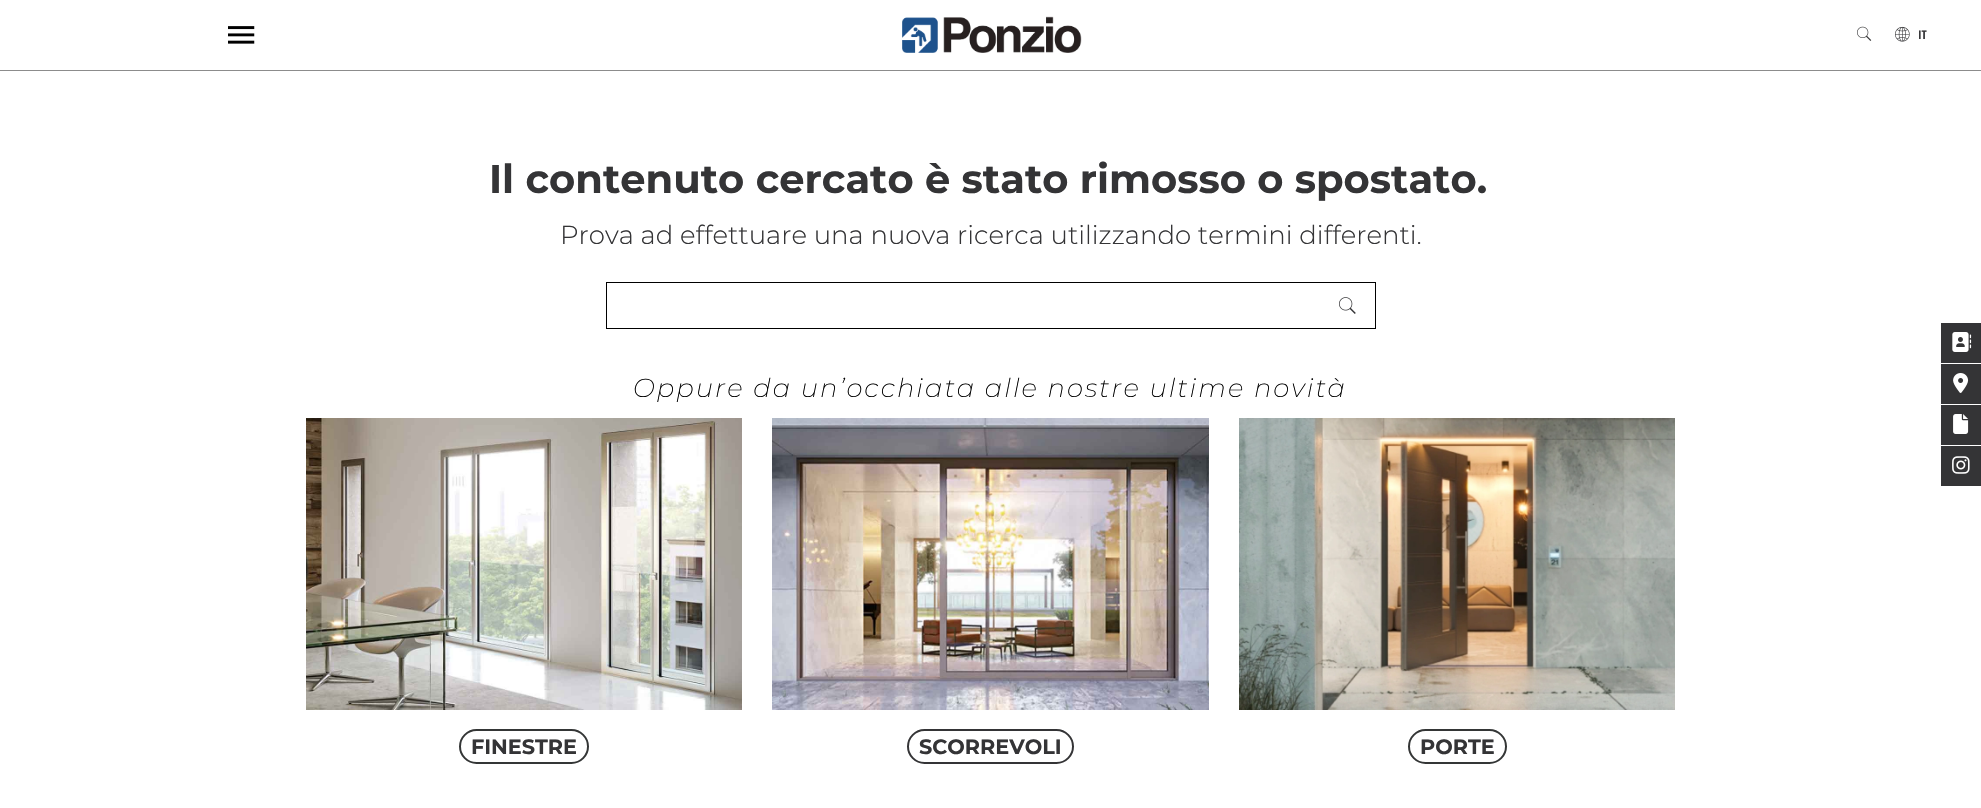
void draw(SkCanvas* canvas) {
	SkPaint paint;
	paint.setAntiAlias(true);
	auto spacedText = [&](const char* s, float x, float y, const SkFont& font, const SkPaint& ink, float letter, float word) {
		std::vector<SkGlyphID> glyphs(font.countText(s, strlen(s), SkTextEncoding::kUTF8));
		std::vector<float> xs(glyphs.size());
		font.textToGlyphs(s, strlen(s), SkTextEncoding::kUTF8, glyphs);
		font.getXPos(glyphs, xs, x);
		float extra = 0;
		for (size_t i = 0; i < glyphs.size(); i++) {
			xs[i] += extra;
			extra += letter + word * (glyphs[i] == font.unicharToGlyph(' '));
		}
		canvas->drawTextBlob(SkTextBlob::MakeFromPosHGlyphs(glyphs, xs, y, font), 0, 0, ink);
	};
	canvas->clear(0xffffffff);
	paint.setColor(0xff8c8c8c);
	canvas->drawRect(SkRect::MakeXYWH(0, 70, 1981, 1), paint);
	canvas->drawImageRect(SkImages::DeferredFromEncodedData(SkData::MakeFromFileName("img1.png")), SkRect::MakeXYWH(228, 26, 27, 18), SkSamplingOptions());
	canvas->drawImageRect(SkImages::DeferredFromEncodedData(SkData::MakeFromFileName("img2.png")), SkRect::MakeXYWH(902, 16, 180, 37), SkSamplingOptions());
	canvas->drawImageRect(SkImages::DeferredFromEncodedData(SkData::MakeFromFileName("img3.png")), SkRect::MakeXYWH(1857, 26, 15, 15), SkSamplingOptions());
	canvas->drawImageRect(SkImages::DeferredFromEncodedData(SkData::MakeFromFileName("img4.png")), SkRect::MakeXYWH(1895, 26, 15, 16), SkSamplingOptions());
	SkFont f1(fontMgr->matchFamilyStyle("Open Sans Condensed", SkFontStyle::Bold()), 12);
	f1.setSubpixel(true);
	paint.setColor(0xff343436);
	canvas->drawString("IT", 1918, 39, f1, paint);
	SkFont f2(fontMgr->matchFamilyStyle("Montserrat", SkFontStyle::Bold()), 40);
	f2.setSubpixel(true);
	canvas->drawString("Il contenuto cercato è stato rimosso o spostato.", 489, 193, f2, paint);
	SkFont f3(fontMgr->matchFamilyStyle("Montserrat", SkFontStyle(300, SkFontStyle::kNormal_Width, SkFontStyle::kUpright_Slant)), 26);
	f3.setSubpixel(true);
	canvas->drawString("Prova ad effettuare una nuova ricerca utilizzando termini differenti.", 560, 244, f3, paint);
	paint.setStroke(true);
	paint.setStrokeWidth(1);
	paint.setColor(0xff000000);
	canvas->drawRect(SkRect::MakeXYWH(606.5, 282.5, 769, 46), paint);
	canvas->drawImageRect(SkImages::DeferredFromEncodedData(SkData::MakeFromFileName("img5.png")), SkRect::MakeXYWH(1339, 297, 17, 17), SkSamplingOptions());
	SkFont f4(fontMgr->matchFamilyStyle("Montserrat", SkFontStyle(200, SkFontStyle::kNormal_Width, SkFontStyle::kItalic_Slant)), 26);
	f4.setSubpixel(true);
	paint.setStroke(false);
	spacedText("Oppure da un’occhiata alle nostre ultime novità", 633, 397, f4, paint, 2, 0);
	canvas->drawImageRect(SkImages::DeferredFromEncodedData(SkData::MakeFromFileName("img6.png")), SkRect::MakeXYWH(306, 418, 436, 292), SkSamplingOptions());
	paint.setStroke(true);
	paint.setStrokeWidth(2);
	paint.setColor(0xff343636);
	canvas->drawRoundRect(SkRect::MakeXYWH(460, 730, 128, 33), 16.5, 16.5, paint);
	SkFont f5(fontMgr->matchFamilyStyle("Montserrat", SkFontStyle::Bold()), 20.75);
	f5.setSubpixel(true);
	paint.setStroke(false);
	paint.setColor(0xff343436);
	canvas->drawString("FINESTRE", 471, 754, f5, paint);
	canvas->drawImageRect(SkImages::DeferredFromEncodedData(SkData::MakeFromFileName("img7.png")), SkRect::MakeXYWH(772, 418, 437, 292), SkSamplingOptions());
	paint.setStroke(true);
	canvas->drawRoundRect(SkRect::MakeXYWH(908, 730, 165, 33), 16.5, 16.5, paint);
	paint.setStroke(false);
	canvas->drawString("SCORREVOLI", 919, 754, f5, paint);
	canvas->drawImageRect(SkImages::DeferredFromEncodedData(SkData::MakeFromFileName("img8.png")), SkRect::MakeXYWH(1239, 418, 436, 292), SkSamplingOptions());
	paint.setStroke(true);
	paint.setColor(0xff343636);
	canvas->drawRoundRect(SkRect::MakeXYWH(1409, 730, 97, 33), 16.5, 16.5, paint);
	paint.setStroke(false);
	paint.setColor(0xff343436);
	canvas->drawString("PORTE", 1420, 754, f5, paint);
	canvas->drawRect(SkRect::MakeXYWH(1941, 323, 40, 40), paint);
	canvas->drawImageRect(SkImages::DeferredFromEncodedData(SkData::MakeFromFileName("img9.png")), SkRect::MakeXYWH(1952, 332, 20, 20), SkSamplingOptions());
	canvas->drawRect(SkRect::MakeXYWH(1941, 364, 40, 40), paint);
	canvas->drawImageRect(SkImages::DeferredFromEncodedData(SkData::MakeFromFileName("img10.png")), SkRect::MakeXYWH(1953, 373, 16, 20), SkSamplingOptions());
	canvas->drawRect(SkRect::MakeXYWH(1941, 405, 40, 40), paint);
	canvas->drawImageRect(SkImages::DeferredFromEncodedData(SkData::MakeFromFileName("img11.png")), SkRect::MakeXYWH(1953, 414, 16, 20), SkSamplingOptions());
	canvas->drawRect(SkRect::MakeXYWH(1941, 446, 40, 40), paint);
	canvas->drawImageRect(SkImages::DeferredFromEncodedData(SkData::MakeFromFileName("img12.png")), SkRect::MakeXYWH(1952, 456, 18, 18), SkSamplingOptions());
}
